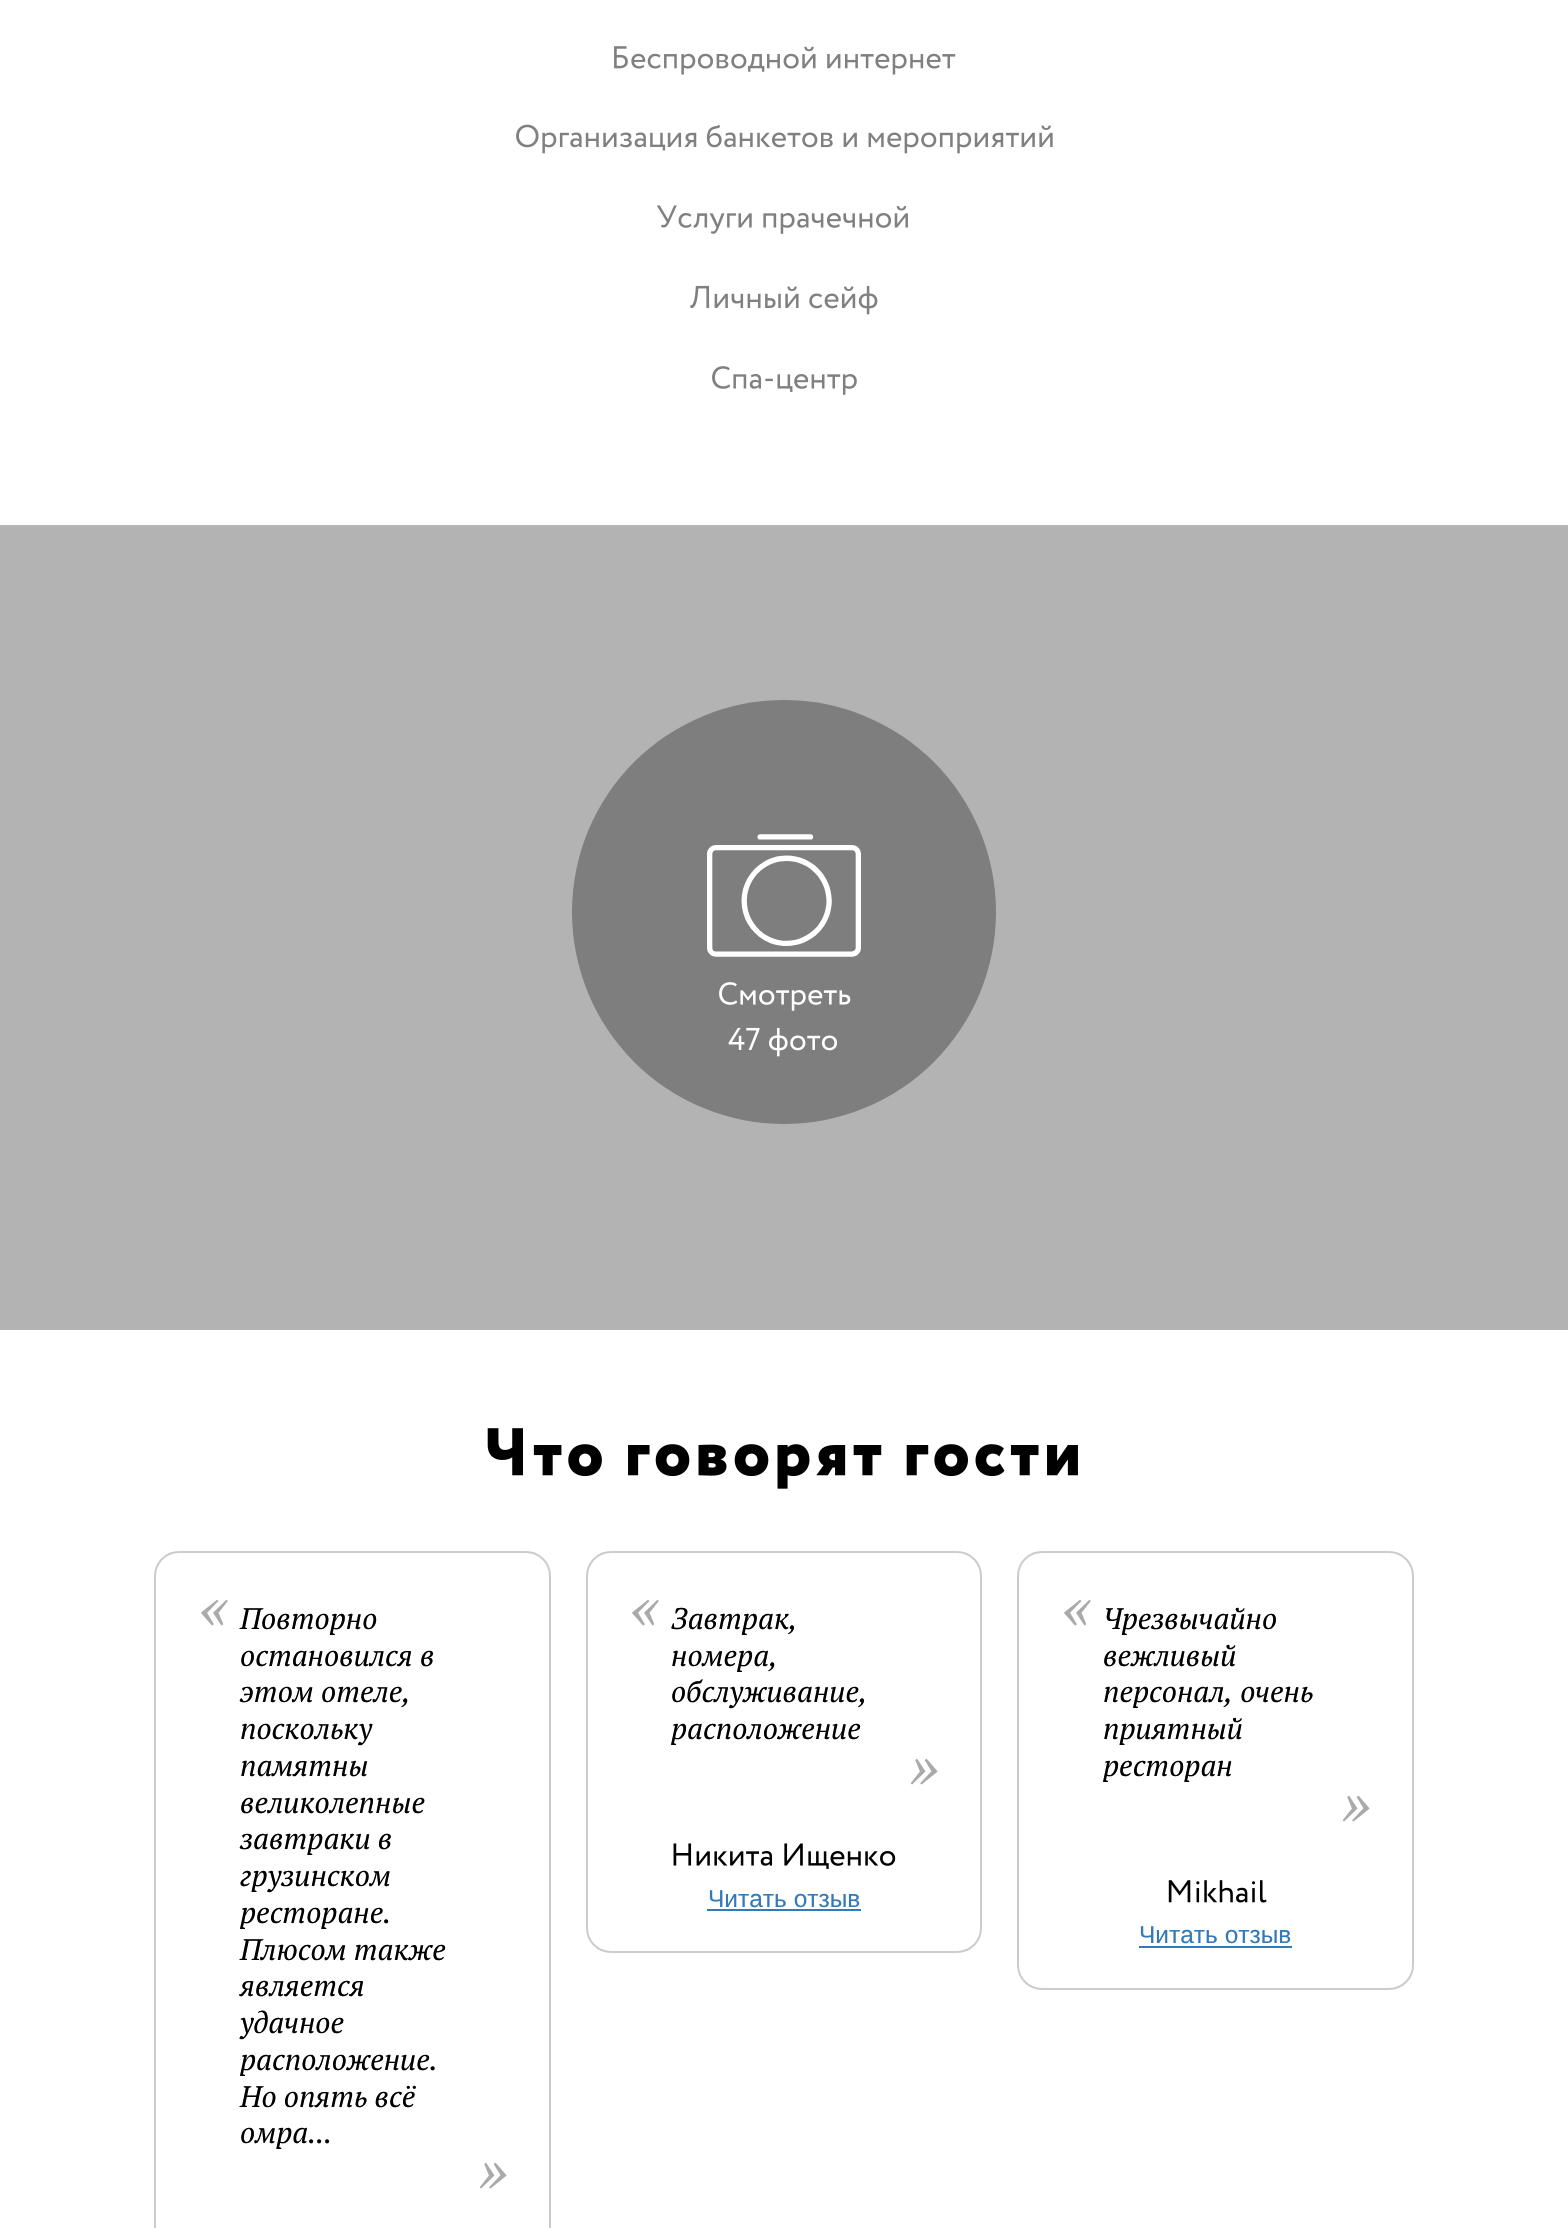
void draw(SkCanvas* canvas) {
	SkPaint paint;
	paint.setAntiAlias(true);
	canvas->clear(0xffffffff);
	canvas->drawImageRect(SkImages::DeferredFromEncodedData(SkData::MakeFromFileName("img1.png")), SkRect::MakeXYWH(614, 46, 342, 29), SkSamplingOptions());
	canvas->drawImageRect(SkImages::DeferredFromEncodedData(SkData::MakeFromFileName("img2.png")), SkRect::MakeXYWH(516, 124, 537, 30), SkSamplingOptions());
	canvas->drawImageRect(SkImages::DeferredFromEncodedData(SkData::MakeFromFileName("img3.png")), SkRect::MakeXYWH(656, 205, 252, 29), SkSamplingOptions());
	canvas->drawImageRect(SkImages::DeferredFromEncodedData(SkData::MakeFromFileName("img4.png")), SkRect::MakeXYWH(690, 285, 188, 30), SkSamplingOptions());
	canvas->drawImageRect(SkImages::DeferredFromEncodedData(SkData::MakeFromFileName("img5.png")), SkRect::MakeXYWH(712, 366, 145, 29), SkSamplingOptions());
	paint.setColor(0xffb3b3b3);
	canvas->drawRect(SkRect::MakeXYWH(0, 525, 1568, 805), paint);
	paint.setColor(0xff7e7e7e);
	canvas->drawCircle(784, 912, 212, paint);
	canvas->drawImageRect(SkImages::DeferredFromEncodedData(SkData::MakeFromFileName("img6.png")), SkRect::MakeXYWH(707, 834, 154, 123), SkSamplingOptions());
	canvas->drawImageRect(SkImages::DeferredFromEncodedData(SkData::MakeFromFileName("img7.png")), SkRect::MakeXYWH(719, 982, 132, 29), SkSamplingOptions());
	canvas->drawImageRect(SkImages::DeferredFromEncodedData(SkData::MakeFromFileName("img8.png")), SkRect::MakeXYWH(728, 1027, 109, 30), SkSamplingOptions());
	canvas->drawImageRect(SkImages::DeferredFromEncodedData(SkData::MakeFromFileName("img9.png")), SkRect::MakeXYWH(487, 1428, 591, 61), SkSamplingOptions());
	paint.setStroke(true);
	paint.setStrokeWidth(2);
	paint.setColor(0xffcccccc);
	canvas->drawRoundRect(SkRect::MakeXYWH(155, 1552, 395, 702), 24, 24, paint);
	SkFont f1(fontMgr->matchFamilyStyle("PT Serif", SkFontStyle::Italic()), 63);
	f1.setSubpixel(true);
	paint.setStroke(false);
	paint.setColor(0xffaaaaaa);
	canvas->drawString("«", 198, 1629, f1, paint);
	SkFont f2(fontMgr->matchFamilyStyle("PT Serif", SkFontStyle::Italic()), 29.75);
	f2.setSubpixel(true);
	paint.setColor(0xff000000);
	canvas->drawString("Повторно", 240, 1629, f2, paint);
	canvas->drawString("остановился в", 240, 1666, f2, paint);
	canvas->drawString("этом отеле,", 240, 1702, f2, paint);
	canvas->drawString("поскольку", 240, 1739, f2, paint);
	canvas->drawString("памятны", 240, 1776, f2, paint);
	canvas->drawString("великолепные", 240, 1813, f2, paint);
	canvas->drawString("завтраки в", 240, 1849, f2, paint);
	canvas->drawString("грузинском", 240, 1886, f2, paint);
	canvas->drawString("ресторане.", 240, 1923, f2, paint);
	canvas->drawString("Плюсом также", 240, 1960, f2, paint);
	canvas->drawString("является", 240, 1996, f2, paint);
	canvas->drawString("удачное", 240, 2033, f2, paint);
	canvas->drawString("расположение.", 240, 2070, f2, paint);
	canvas->drawString("Но опять всё", 240, 2107, f2, paint);
	canvas->drawString("омра...", 240, 2143, f2, paint);
	paint.setColor(0xffaaaaaa);
	canvas->drawString("»", 478, 2192, f1, paint);
	paint.setStroke(true);
	paint.setColor(0xffcccccc);
	canvas->drawRoundRect(SkRect::MakeXYWH(587, 1552, 394, 400), 24, 24, paint);
	paint.setStroke(false);
	paint.setColor(0xffaaaaaa);
	canvas->drawString("«", 629, 1629, f1, paint);
	paint.setColor(0xff000000);
	canvas->drawString("Завтрак,", 671, 1629, f2, paint);
	canvas->drawString("номера,", 671, 1666, f2, paint);
	canvas->drawString("обслуживание,", 671, 1702, f2, paint);
	canvas->drawString("расположение", 671, 1739, f2, paint);
	paint.setColor(0xffaaaaaa);
	canvas->drawString("»", 909, 1788, f1, paint);
	canvas->drawImageRect(SkImages::DeferredFromEncodedData(SkData::MakeFromFileName("img10.png")), SkRect::MakeXYWH(673, 1843, 223, 26), SkSamplingOptions());
	SkFont f3(fontMgr->matchFamilyStyle("Liberation Sans", SkFontStyle::Normal()), 24.5);
	f3.setSubpixel(true);
	paint.setColor(0xff337ab7);
	canvas->drawString("Читать отзыв", 708, 1907, f3, paint);
	canvas->drawRect(SkRect::MakeXYWH(707, 1909, 154, 2), paint);
	paint.setStroke(true);
	paint.setColor(0xffcccccc);
	canvas->drawRoundRect(SkRect::MakeXYWH(1018, 1552, 395, 437), 24, 24, paint);
	paint.setStroke(false);
	paint.setColor(0xffaaaaaa);
	canvas->drawString("«", 1061, 1629, f1, paint);
	paint.setColor(0xff000000);
	canvas->drawString("Чрезвычайно", 1103, 1629, f2, paint);
	canvas->drawString("вежливый", 1103, 1666, f2, paint);
	canvas->drawString("персонал, очень", 1103, 1702, f2, paint);
	canvas->drawString("приятный", 1103, 1739, f2, paint);
	canvas->drawString("ресторан", 1103, 1776, f2, paint);
	paint.setColor(0xffaaaaaa);
	canvas->drawString("»", 1341, 1825, f1, paint);
	canvas->drawImageRect(SkImages::DeferredFromEncodedData(SkData::MakeFromFileName("img11.png")), SkRect::MakeXYWH(1168, 1880, 99, 23), SkSamplingOptions());
	paint.setColor(0xff337ab7);
	canvas->drawString("Читать отзыв", 1139, 1943, f3, paint);
	canvas->drawRect(SkRect::MakeXYWH(1139, 1946, 153, 2), paint);
}
